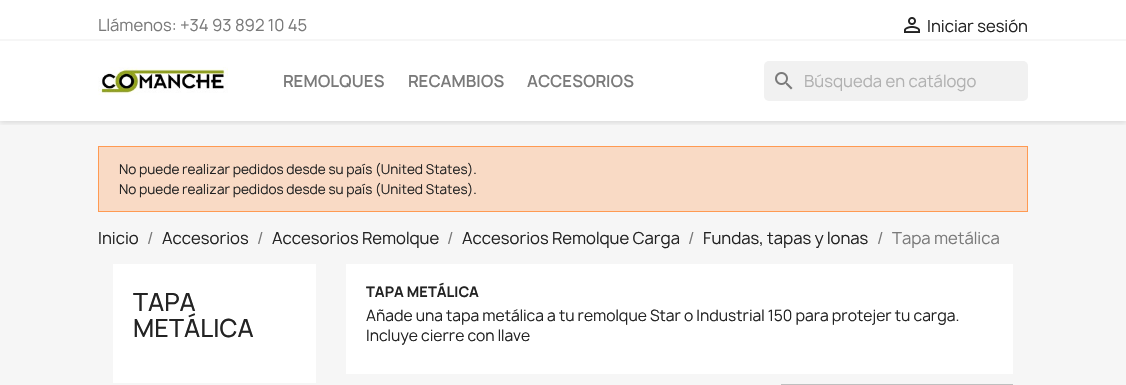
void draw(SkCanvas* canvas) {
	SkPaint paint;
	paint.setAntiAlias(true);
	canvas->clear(0xffffffff);
	paint.setColor(0xfff6f6f6);
	canvas->drawRect(SkRect::MakeXYWH(0, 121, 1126, 264), paint);
	canvas->save();
	canvas->clipRect(SkRect::MakeXYWH(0, 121, 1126, 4));
	paint.setColor(0x1c000000);
	paint.setMaskFilter(SkMaskFilter::MakeBlur(kNormal_SkBlurStyle, 2.5));
	canvas->drawRect(SkRect::MakeXYWH(0, 2, 1126, 121), paint);
	paint.setMaskFilter(nullptr);
	canvas->restore();
	paint.setColor(0xfff6f6f6);
	canvas->drawRect(SkRect::MakeXYWH(0, 39, 1126, 2), paint);
	SkFont f1(fontMgr->matchFamilyStyle("Manrope", SkFontStyle::Normal()), 16);
	f1.setSubpixel(true);
	paint.setColor(0xff7a7a7a);
	canvas->drawString("Llámenos: +34 93 892 10 45", 98, 31, f1, paint);
	canvas->drawImageRect(SkImages::DeferredFromEncodedData(SkData::MakeFromFileName("img1.png")), SkRect::MakeXYWH(904, 17, 16, 16), SkSamplingOptions());
	paint.setColor(0xff232323);
	canvas->drawString("Iniciar sesión", 927, 32, f1, paint);
	canvas->drawImageRect(SkImages::DeferredFromEncodedData(SkData::MakeFromFileName("img2.png")), SkRect::MakeXYWH(98, 67, 130, 28), SkSamplingOptions());
	SkFont f2(fontMgr->matchFamilyStyle("Manrope", SkFontStyle(600, SkFontStyle::kNormal_Width, SkFontStyle::kUpright_Slant)), 16);
	f2.setSubpixel(true);
	paint.setColor(0xff7a7a7a);
	canvas->drawString("REMOLQUES", 283, 87, f2, paint);
	canvas->drawString("RECAMBIOS", 408, 87, f2, paint);
	canvas->drawString("ACCESORIOS", 527, 87, f2, paint);
	paint.setColor(0xfff1f1f1);
	canvas->drawRoundRect(SkRect::MakeXYWH(764, 61, 264, 40), 5, 5, paint);
	canvas->drawImageRect(SkImages::DeferredFromEncodedData(SkData::MakeFromFileName("img3.png")), SkRect::MakeXYWH(775, 72, 18, 18), SkSamplingOptions());
	paint.setColor(0xffb1b1b1);
	canvas->drawString("Búsqueda en catálogo", 804, 87, f1, paint);
	paint.setColor(0xfff9dac5);
	canvas->drawRect(SkRect::MakeXYWH(98.5, 146.5, 929, 65), paint);
	paint.setStroke(true);
	paint.setStrokeWidth(1);
	paint.setColor(0xffff9a52);
	canvas->drawRect(SkRect::MakeXYWH(98.5, 146.5, 929, 65), paint);
	SkFont f3(fontMgr->matchFamilyStyle("Manrope", SkFontStyle::Normal()), 13);
	f3.setSubpixel(true);
	paint.setStroke(false);
	paint.setColor(0xff232323);
	canvas->drawString("No puede realizar pedidos desde su país (United States).", 119, 174, f3, paint);
	canvas->drawString("No puede realizar pedidos desde su país (United States).", 119, 194, f3, paint);
	canvas->drawString("Inicio", 98, 244, f1, paint);
	paint.setColor(0xff7a7a7a);
	canvas->drawString("/", 147, 244, f1, paint);
	paint.setColor(0xff232323);
	canvas->drawString("Accesorios", 162, 244, f1, paint);
	paint.setColor(0xff7a7a7a);
	canvas->drawString("/", 257, 244, f1, paint);
	paint.setColor(0xff232323);
	canvas->drawString("Accesorios Remolque", 272, 244, f1, paint);
	paint.setColor(0xff7a7a7a);
	canvas->drawString("/", 447, 244, f1, paint);
	paint.setColor(0xff232323);
	canvas->drawString("Accesorios Remolque Carga", 462, 244, f1, paint);
	paint.setColor(0xff7a7a7a);
	canvas->drawString("/", 688, 244, f1, paint);
	paint.setColor(0xff232323);
	canvas->drawString("Fundas, tapas y lonas", 703, 244, f1, paint);
	paint.setColor(0xff7a7a7a);
	canvas->drawString("/", 877, 244, f1, paint);
	canvas->drawString("Tapa metálica", 892, 244, f1, paint);
	paint.setColor(0xffffffff);
	canvas->drawRect(SkRect::MakeXYWH(113, 264, 203, 119), paint);
	SkFont f4(fontMgr->matchFamilyStyle("Manrope", SkFontStyle(500, SkFontStyle::kNormal_Width, SkFontStyle::kUpright_Slant)), 24);
	f4.setSubpixel(true);
	paint.setColor(0xff232323);
	canvas->drawString("TAPA", 133, 311, f4, paint);
	canvas->drawString("METÁLICA", 133, 337, f4, paint);
	paint.setColor(0xffffffff);
	canvas->drawRect(SkRect::MakeXYWH(346, 264, 667, 110), paint);
	SkFont f5(fontMgr->matchFamilyStyle("Manrope", SkFontStyle::Bold()), 14);
	f5.setSubpixel(true);
	paint.setColor(0xff232323);
	canvas->drawString("TAPA METÁLICA", 366, 297, f5, paint);
	SkFont f6(fontMgr->matchFamilyStyle("Manrope", SkFontStyle::Normal()), 15);
	f6.setSubpixel(true);
	canvas->drawString("Añade una tapa metálica a tu remolque Star o Industrial 150 para protejer tu carga.", 366, 321, f6, paint);
	canvas->drawString("Incluye cierre con llave", 366, 341, f6, paint);
	paint.setStroke(true);
	paint.setColor(0xffbfbfbf);
	canvas->drawRect(SkRect::MakeXYWH(781.5, 384.5, 231, 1), paint);
}
